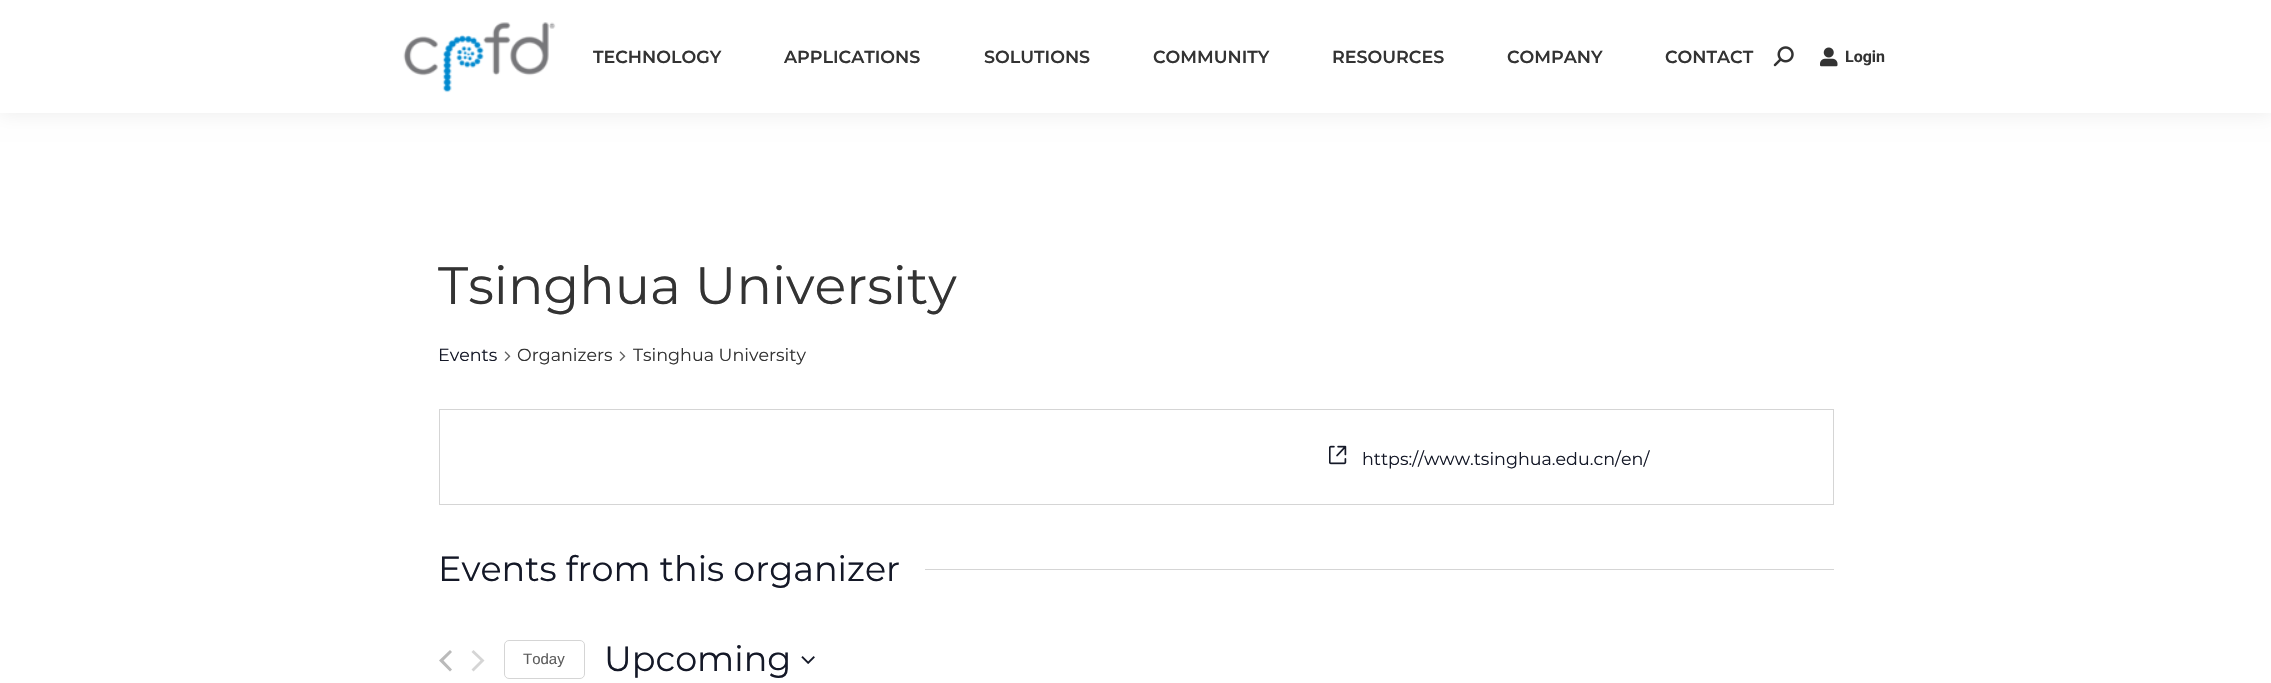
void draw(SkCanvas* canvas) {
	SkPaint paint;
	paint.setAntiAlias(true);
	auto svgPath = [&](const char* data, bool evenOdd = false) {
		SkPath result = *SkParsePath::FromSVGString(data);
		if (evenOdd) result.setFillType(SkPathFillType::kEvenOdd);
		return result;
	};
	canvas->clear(0xffffffff);
	paint.setColor(0x12000000);
	paint.setMaskFilter(SkMaskFilter::MakeBlur(kNormal_SkBlurStyle, 9.5));
	canvas->drawRect(SkRect::MakeXYWH(-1, -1, 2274, 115), paint);
	paint.setMaskFilter(nullptr);
	paint.setColor(0xffffffff);
	canvas->drawRect(SkRect::MakeXYWH(0, 0, 2271, 113), paint);
	canvas->drawImageRect(SkImages::DeferredFromEncodedData(SkData::MakeFromFileName("img1.png")), SkRect::MakeXYWH(403, 22, 153, 71), SkSamplingOptions());
	SkFont f1(fontMgr->matchFamilyStyle("Montserrat", SkFontStyle(600, SkFontStyle::kNormal_Width, SkFontStyle::kUpright_Slant)), 17.5);
	f1.setSubpixel(true);
	paint.setColor(0xff333333);
	canvas->drawString("TECHNOLOGY", 593, 63, f1, paint);
	canvas->drawString("APPLICATIONS", 784, 63, f1, paint);
	canvas->drawString("SOLUTIONS", 984, 63, f1, paint);
	canvas->drawString("COMMUNITY", 1153, 63, f1, paint);
	canvas->drawString("RESOURCES", 1332, 63, f1, paint);
	canvas->drawString("COMPANY", 1507, 63, f1, paint);
	canvas->drawString("CONTACT", 1665, 63, f1, paint);
	canvas->drawImageRect(SkImages::DeferredFromEncodedData(SkData::MakeFromFileName("img2.png")), SkRect::MakeXYWH(1773, 46, 21, 21), SkSamplingOptions());
	canvas->drawImageRect(SkImages::DeferredFromEncodedData(SkData::MakeFromFileName("img3.png")), SkRect::MakeXYWH(1820, 47, 18, 20), SkSamplingOptions());
	SkFont f2(fontMgr->matchFamilyStyle("Roboto", SkFontStyle::Bold()), 16);
	f2.setSubpixel(true);
	canvas->drawString("Login", 1845, 62, f2, paint);
	SkFont f3(fontMgr->matchFamilyStyle("Montserrat", SkFontStyle::Normal()), 52.5);
	f3.setSubpixel(true);
	canvas->drawString("Tsinghua University", 438, 304, f3, paint);
	SkFont f4(fontMgr->matchFamilyStyle("Montserrat", SkFontStyle::Normal()), 17.5);
	f4.setSubpixel(true);
	paint.setColor(0xff141827);
	canvas->drawString("Events", 438, 361, f4, paint);
	canvas->drawImageRect(SkImages::DeferredFromEncodedData(SkData::MakeFromFileName("img4.png")), SkRect::MakeXYWH(504, 351, 7, 10), SkSamplingOptions());
	paint.setColor(0xff333333);
	canvas->drawString("Organizers", 517, 361, f4, paint);
	canvas->drawImageRect(SkImages::DeferredFromEncodedData(SkData::MakeFromFileName("img4.png")), SkRect::MakeXYWH(619, 351, 7, 10), SkSamplingOptions());
	canvas->drawString("Tsinghua University", 633, 361, f4, paint);
	paint.setStroke(true);
	paint.setStrokeWidth(1);
	paint.setColor(0xffd5d5d5);
	canvas->drawRect(SkRect::MakeXYWH(439.5, 409.5, 1394, 95), paint);
	canvas->drawImageRect(SkImages::DeferredFromEncodedData(SkData::MakeFromFileName("img5.png")), SkRect::MakeXYWH(1329, 445, 18, 20), SkSamplingOptions());
	paint.setStroke(false);
	paint.setColor(0xff141827);
	canvas->drawString("https://www.tsinghua.edu.cn/en/", 1362, 465, f4, paint);
	SkFont f5(fontMgr->matchFamilyStyle("Montserrat", SkFontStyle::Normal()), 35);
	f5.setSubpixel(true);
	canvas->drawString("Events from this organizer", 438, 581, f5, paint);
	paint.setColor(0xffd5d5d5);
	canvas->drawRect(SkRect::MakeXYWH(925, 569, 909, 1), paint);
	paint.setColor(0xffbababa);
	canvas->drawPath(svgPath("M452 669.5L450 671.5L439 660.5L450 650L452 652L443.5 660.5Z"), paint);
	paint.setColor(0xffd5d5d5);
	canvas->drawPath(svgPath("M471.5 652L473.5 650L484.5 660.5L473.5 671.5L471.5 669.5L480.5 660.5Z"), paint);
	paint.setStroke(true);
	canvas->drawRoundRect(SkRect::MakeXYWH(504.5, 640.5, 80, 38), 4.5, 4.5, paint);
	SkFont f6(fontMgr->matchFamilyStyle("Liberation Sans", SkFontStyle::Normal()), 15);
	f6.setSubpixel(true);
	paint.setStroke(false);
	paint.setColor(0xff5d5d5d);
	canvas->drawString("Today", 523, 664, f6, paint);
	paint.setColor(0xff141827);
	canvas->drawString("Upcoming", 604, 671, f5, paint);
	canvas->drawImageRect(SkImages::DeferredFromEncodedData(SkData::MakeFromFileName("img6.png")), SkRect::MakeXYWH(801, 656, 14, 8), SkSamplingOptions());
}
